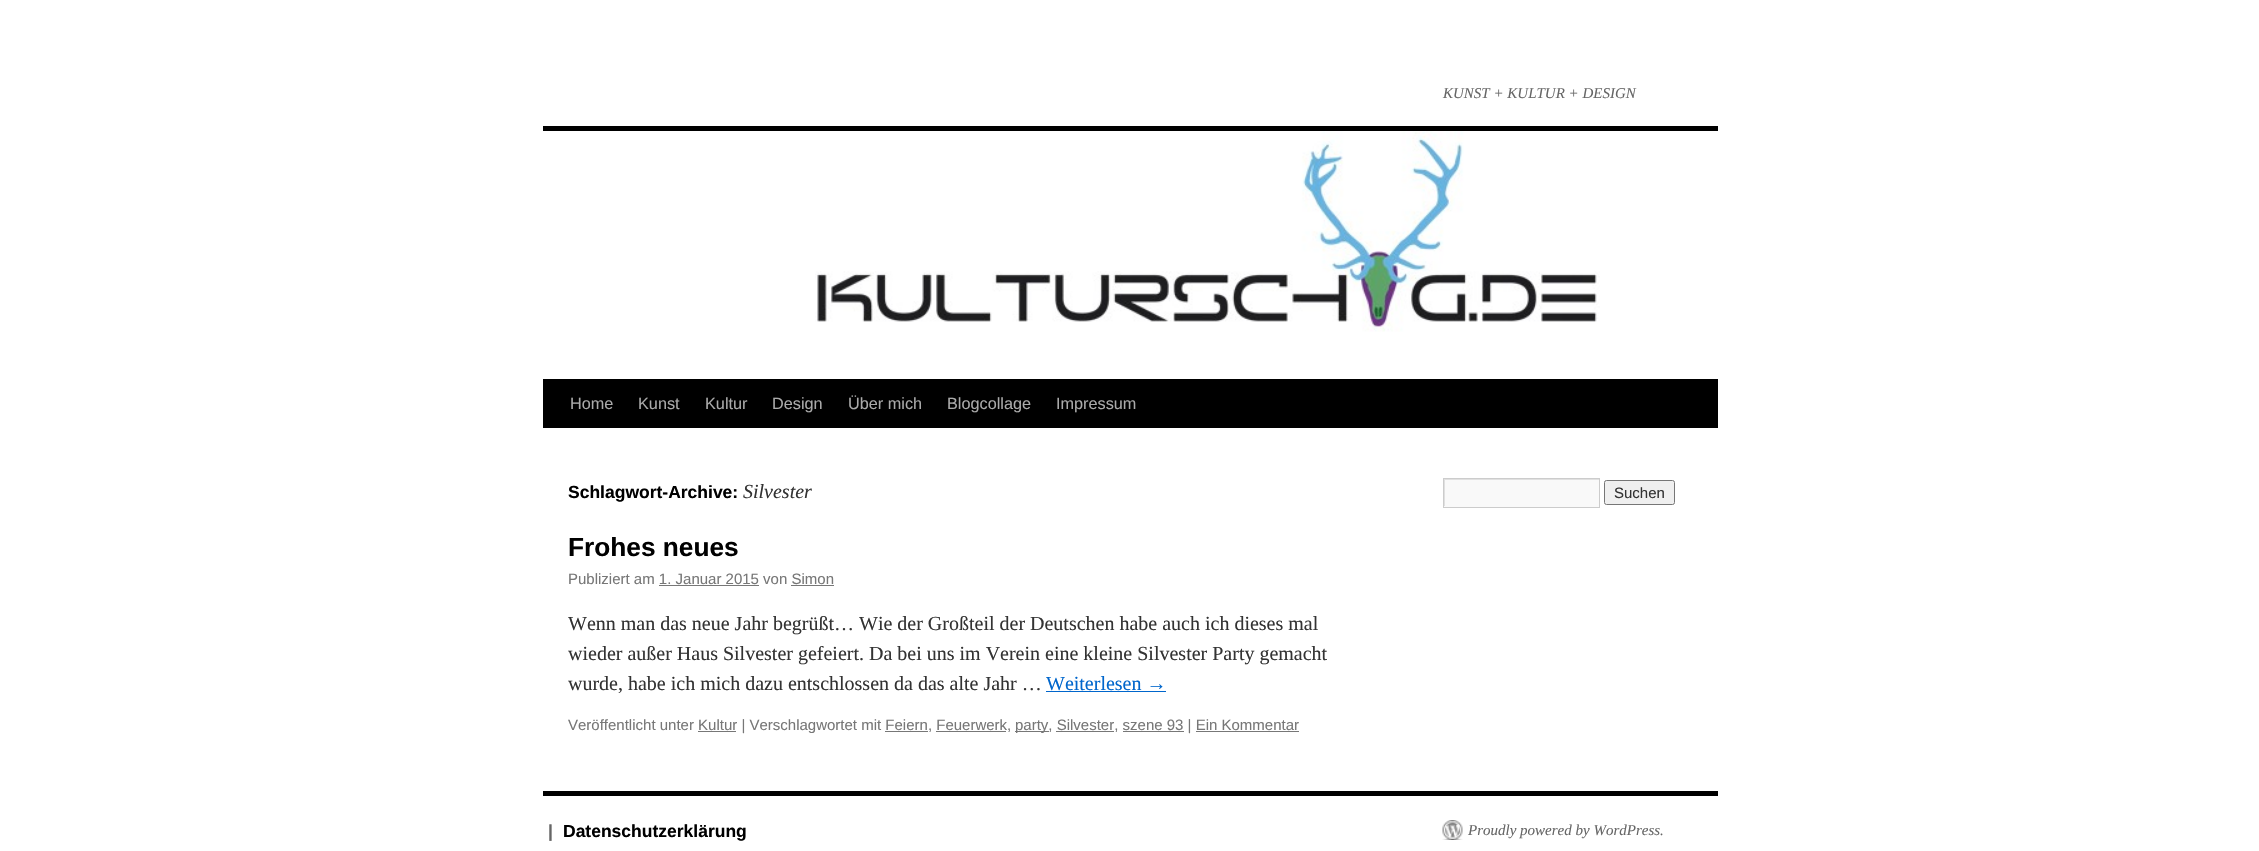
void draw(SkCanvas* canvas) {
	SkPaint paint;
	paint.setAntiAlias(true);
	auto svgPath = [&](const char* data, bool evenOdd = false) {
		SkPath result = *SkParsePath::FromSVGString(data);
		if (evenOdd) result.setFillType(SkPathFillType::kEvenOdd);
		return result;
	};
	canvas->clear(0xffffffff);
	SkFont f1(fontMgr->matchFamilyStyle("Liberation Serif", SkFontStyle::Italic()), 15);
	f1.setSubpixel(true);
	paint.setColor(0xff666666);
	canvas->drawString("KUNST + KULTUR + DESIGN", 1443, 98, f1, paint);
	paint.setColor(0xff000000);
	canvas->drawRect(SkRect::MakeXYWH(543, 126, 1175, 5), paint);
	canvas->drawRect(SkRect::MakeXYWH(543, 379, 1175, 49), paint);
	canvas->drawImageRect(SkImages::DeferredFromEncodedData(SkData::MakeFromFileName("img1.png")), SkRect::MakeXYWH(815, 131, 785, 201), SkSamplingOptions());
	SkFont f2(fontMgr->matchFamilyStyle("Liberation Sans", SkFontStyle::Normal()), 16.25);
	f2.setSubpixel(true);
	paint.setColor(0xffaaaaaa);
	canvas->drawString("Home", 570, 409, f2, paint);
	canvas->drawString("Kunst", 638, 409, f2, paint);
	canvas->drawString("Kultur", 705, 409, f2, paint);
	canvas->drawString("Design", 772, 409, f2, paint);
	canvas->drawString("Über mich", 848, 409, f2, paint);
	canvas->drawString("Blogcollage", 947, 409, f2, paint);
	canvas->drawString("Impressum", 1056, 409, f2, paint);
	SkFont f3(fontMgr->matchFamilyStyle("Liberation Sans", SkFontStyle::Bold()), 17.5);
	f3.setSubpixel(true);
	paint.setColor(0xff000000);
	canvas->drawString("Schlagwort-Archive:", 568, 498, f3, paint);
	SkFont f4(fontMgr->matchFamilyStyle("Liberation Serif", SkFontStyle::Italic()), 20);
	f4.setSubpixel(true);
	paint.setColor(0xff333333);
	canvas->drawString("Silvester", 743, 498, f4, paint);
	SkFont f5(fontMgr->matchFamilyStyle("Liberation Sans", SkFontStyle::Bold()), 26.25);
	f5.setSubpixel(true);
	paint.setColor(0xff000000);
	canvas->drawString("Frohes neues", 568, 556, f5, paint);
	SkFont f6(fontMgr->matchFamilyStyle("Liberation Sans", SkFontStyle::Normal()), 15);
	f6.setSubpixel(true);
	paint.setColor(0xff777777);
	canvas->drawString("Publiziert am 1. Januar 2015 von Simon", 568, 584, f6, paint);
	canvas->drawRect(SkRect::MakeXYWH(659, 585, 100, 1), paint);
	canvas->drawRect(SkRect::MakeXYWH(791, 585, 43, 1), paint);
	SkFont f7(fontMgr->matchFamilyStyle("Liberation Serif", SkFontStyle::Normal()), 20);
	f7.setSubpixel(true);
	paint.setColor(0xff333333);
	canvas->drawString("Wenn man das neue Jahr begrüßt… Wie der Großteil der Deutschen habe auch ich dieses mal", 568, 630, f7, paint);
	canvas->drawString("wieder außer Haus Silvester gefeiert. Da bei uns im Verein eine kleine Silvester Party gemacht", 568, 660, f7, paint);
	canvas->drawString("wurde, habe ich mich dazu entschlossen da das alte Jahr …", 568, 690, f7, paint);
	paint.setColor(0xff0066cc);
	canvas->drawString("Weiterlesen →", 1046, 690, f7, paint);
	canvas->drawRect(SkRect::MakeXYWH(1046, 691, 120, 1), paint);
	paint.setColor(0xff777777);
	canvas->drawString("Veröffentlicht unter Kultur | Verschlagwortet mit Feiern, Feuerwerk,", 568, 730, f6, paint);
	canvas->drawRect(SkRect::MakeXYWH(698, 731, 38, 1), paint);
	canvas->drawRect(SkRect::MakeXYWH(1015, 731, 34, 1), paint);
	canvas->drawString("party, Silvester, szene 93 | Ein Kommentar", 1015, 730, f6, paint);
	canvas->drawRect(SkRect::MakeXYWH(885, 731, 43, 1), paint);
	canvas->drawRect(SkRect::MakeXYWH(936, 731, 70, 1), paint);
	canvas->drawRect(SkRect::MakeXYWH(1056, 731, 58, 1), paint);
	canvas->drawRect(SkRect::MakeXYWH(1123, 731, 61, 1), paint);
	canvas->drawRect(SkRect::MakeXYWH(1196, 731, 103, 1), paint);
	paint.setColor(0xfff9f9f9);
	canvas->drawRect(SkRect::MakeXYWH(1444, 480, 155, 27), paint);
	canvas->save();
	canvas->clipRect(SkRect::MakeXYWH(1444, 479, 155, 27));
	paint.setColor(0xffe0e0e0);
	canvas->drawPath(svgPath("M1320 355H1722V630H1320ZM1445 480H1600V508H1445Z", true), paint);
	canvas->restore();
	paint.setStroke(true);
	paint.setStrokeWidth(1);
	paint.setColor(0xffcccccc);
	canvas->drawRect(SkRect::MakeXYWH(1443.5, 478.5, 156, 29), paint);
	paint.setStroke(false);
	paint.setColor(0xffefefef);
	canvas->drawRoundRect(SkRect::MakeXYWH(1604.5, 480.5, 70, 24), 2, 2, paint);
	paint.setStroke(true);
	paint.setColor(0xff767676);
	canvas->drawRoundRect(SkRect::MakeXYWH(1604.5, 480.5, 70, 24), 2, 2, paint);
	paint.setStroke(false);
	paint.setColor(0xff333333);
	canvas->drawString("Suchen", 1614, 498, f6, paint);
	paint.setColor(0xff000000);
	canvas->drawRect(SkRect::MakeXYWH(543, 791, 1175, 5), paint);
	paint.setColor(0xff666666);
	canvas->drawString("|", 548, 837, f3, paint);
	paint.setColor(0xff000000);
	canvas->drawString("Datenschutzerklärung", 563, 837, f3, paint);
	canvas->drawImageRect(SkImages::DeferredFromEncodedData(SkData::MakeFromFileName("img2.png")), SkRect::MakeXYWH(1442, 820, 21, 20), SkSamplingOptions());
	paint.setColor(0xff666666);
	canvas->drawString("Proudly powered by WordPress.", 1468, 835, f1, paint);
}
